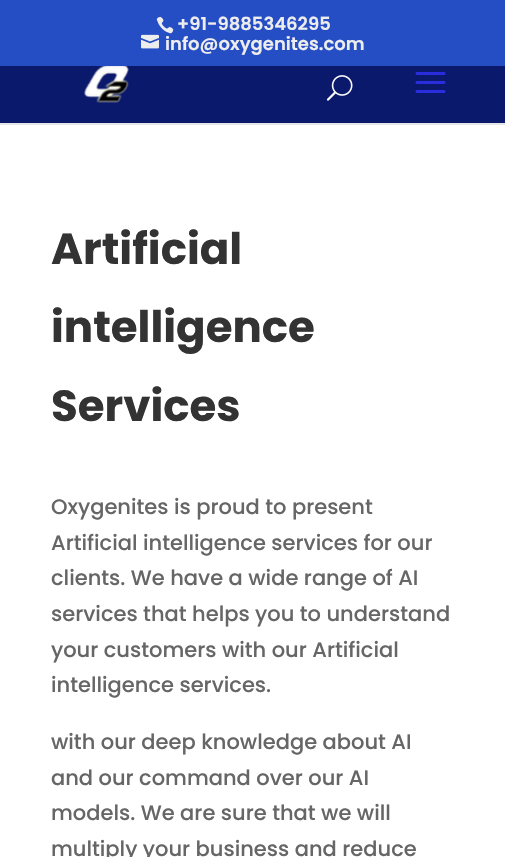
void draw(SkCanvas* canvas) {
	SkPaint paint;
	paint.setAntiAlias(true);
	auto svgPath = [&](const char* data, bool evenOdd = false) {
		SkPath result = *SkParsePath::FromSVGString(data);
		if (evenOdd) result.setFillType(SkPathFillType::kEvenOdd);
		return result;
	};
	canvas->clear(0xffffffff);
	paint.setColor(0xff254dc4);
	canvas->drawRect(SkRect::MakeXYWH(0, 0, 505, 66), paint);
	canvas->drawImageRect(SkImages::DeferredFromEncodedData(SkData::MakeFromFileName("img1.png")), SkRect::MakeXYWH(156, 16, 18, 18), SkSamplingOptions());
	SkFont f1(fontMgr->matchFamilyStyle("Poppins", SkFontStyle(600, SkFontStyle::kNormal_Width, SkFontStyle::kUpright_Slant)), 18);
	f1.setSubpixel(true);
	paint.setColor(0xffededed);
	canvas->drawString("+91-9885346295", 177, 30, f1, paint);
	canvas->drawImageRect(SkImages::DeferredFromEncodedData(SkData::MakeFromFileName("img2.png")), SkRect::MakeXYWH(141, 34, 18, 15), SkSamplingOptions());
	canvas->drawString("info@oxygenites.com", 165, 50, f1, paint);
	paint.setColor(0xffe6e6e6);
	canvas->drawPath(svgPath("M0 123V125H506V47V123Z"), paint);
	paint.setColor(0xff0a196c);
	canvas->drawRect(SkRect::MakeXYWH(0, 66, 505, 57), paint);
	canvas->drawImageRect(SkImages::DeferredFromEncodedData(SkData::MakeFromFileName("img3.png")), SkRect::MakeXYWH(84, 66, 45, 37), SkSamplingOptions());
	canvas->drawImageRect(SkImages::DeferredFromEncodedData(SkData::MakeFromFileName("img4.png")), SkRect::MakeXYWH(326, 75, 27, 26), SkSamplingOptions());
	canvas->drawImageRect(SkImages::DeferredFromEncodedData(SkData::MakeFromFileName("img5.png")), SkRect::MakeXYWH(415, 72, 31, 21), SkSamplingOptions());
	SkFont f2(fontMgr->matchFamilyStyle("Poppins", SkFontStyle::Bold()), 43.5);
	f2.setSubpixel(true);
	paint.setColor(0xff333333);
	canvas->drawString("Artificial", 51, 264, f2, paint);
	canvas->drawString("intelligence", 51, 342, f2, paint);
	canvas->drawString("Services", 51, 421, f2, paint);
	SkFont f3(fontMgr->matchFamilyStyle("Poppins", SkFontStyle(500, SkFontStyle::kNormal_Width, SkFontStyle::kUpright_Slant)), 21);
	f3.setSubpixel(true);
	paint.setColor(0xff666666);
	canvas->drawString("Oxygenites is proud to present", 51, 514, f3, paint);
	canvas->drawString("Artificial intelligence services for our", 51, 550, f3, paint);
	canvas->drawString("clients. We have a wide range of AI", 51, 585, f3, paint);
	canvas->drawString("services that helps you to understand", 51, 621, f3, paint);
	canvas->drawString("your customers with our Artificial", 51, 657, f3, paint);
	canvas->drawString("intelligence services.", 51, 692, f3, paint);
	canvas->drawString("with our deep knowledge about AI", 51, 749, f3, paint);
	canvas->drawString("and our command over our AI", 51, 785, f3, paint);
	canvas->drawString("models. We are sure that we will", 51, 820, f3, paint);
	canvas->drawString("multiply your business and reduce", 51, 856, f3, paint);
}
